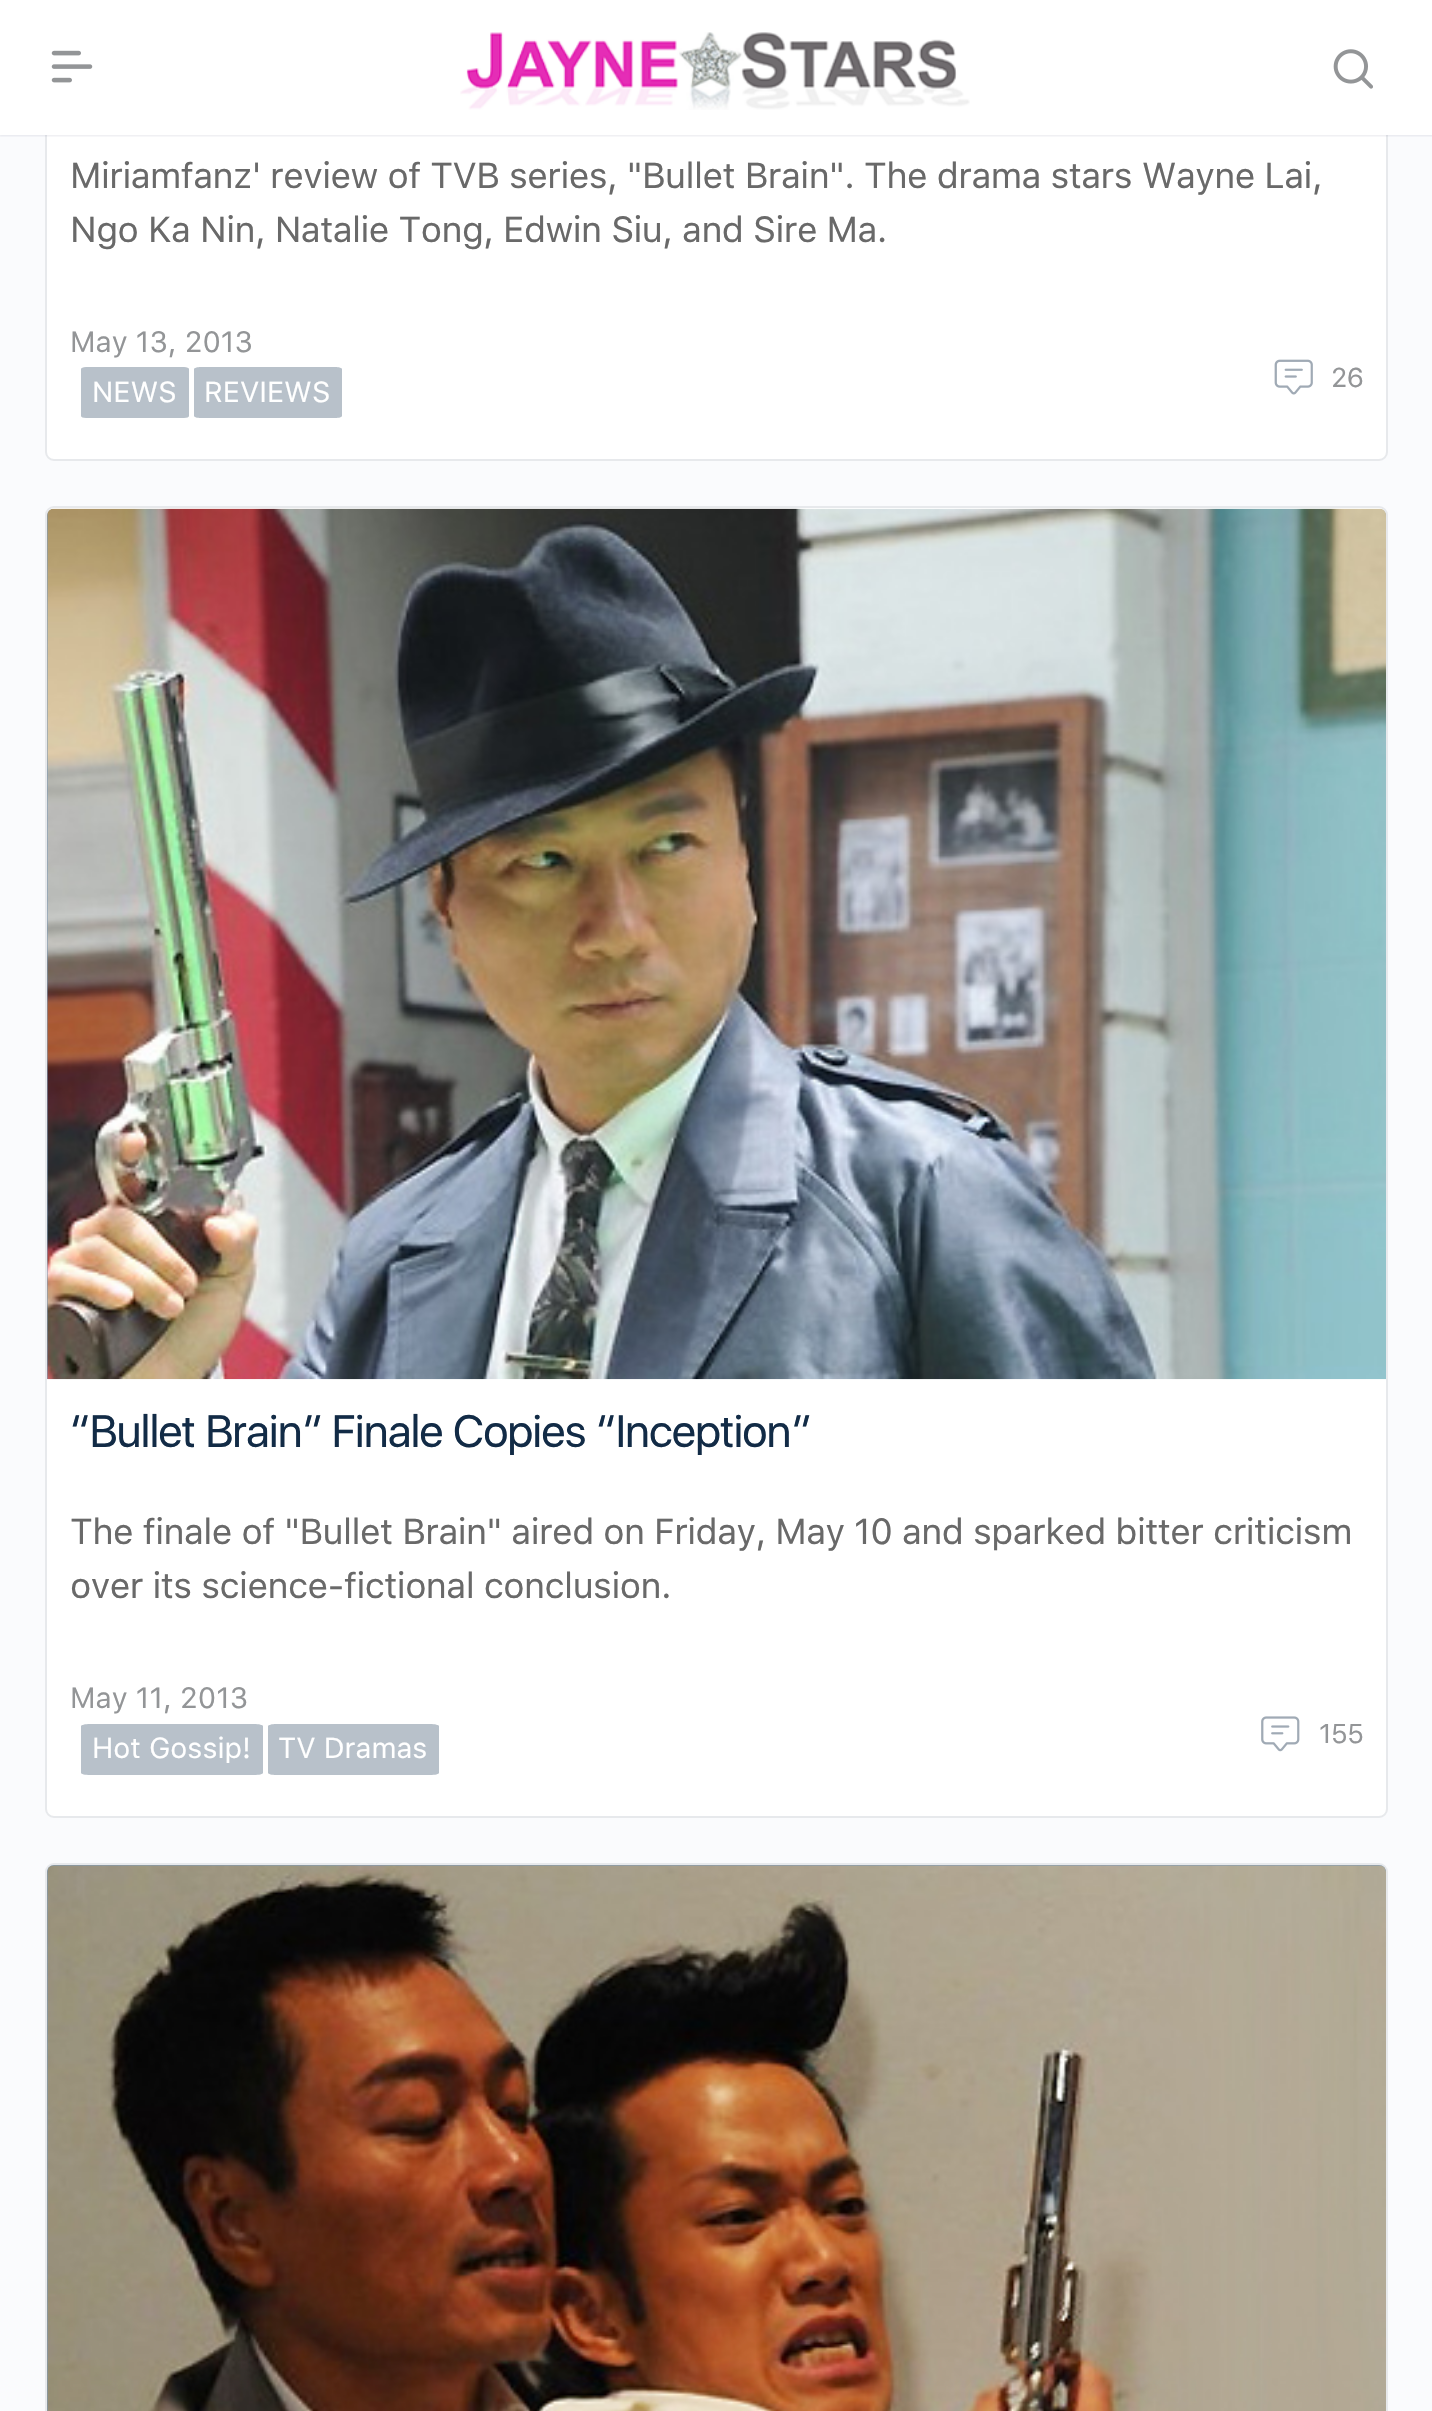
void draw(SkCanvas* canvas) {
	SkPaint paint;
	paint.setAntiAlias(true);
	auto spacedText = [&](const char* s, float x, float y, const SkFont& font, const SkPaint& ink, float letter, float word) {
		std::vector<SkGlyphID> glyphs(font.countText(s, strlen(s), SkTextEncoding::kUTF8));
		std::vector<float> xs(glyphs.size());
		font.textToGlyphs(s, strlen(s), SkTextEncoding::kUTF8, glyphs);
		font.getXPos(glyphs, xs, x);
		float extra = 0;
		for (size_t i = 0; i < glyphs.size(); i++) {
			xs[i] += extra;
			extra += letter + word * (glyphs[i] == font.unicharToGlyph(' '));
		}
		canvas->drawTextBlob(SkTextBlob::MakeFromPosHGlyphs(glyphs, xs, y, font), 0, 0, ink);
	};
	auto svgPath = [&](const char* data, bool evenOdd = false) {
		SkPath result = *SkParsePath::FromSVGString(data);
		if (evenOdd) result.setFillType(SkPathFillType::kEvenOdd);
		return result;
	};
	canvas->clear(0xfffafbfd);
	paint.setColor(0xffffffff);
	canvas->drawRoundRect(SkRect::MakeXYWH(46, -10, 1341, 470), 8, 8, paint);
	paint.setStroke(true);
	paint.setStrokeWidth(2);
	paint.setColor(0xffe7e9ec);
	canvas->drawRoundRect(SkRect::MakeXYWH(46, -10, 1341, 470), 8, 8, paint);
	paint.setStroke(false);
	paint.setColor(0x2641476c);
	paint.setMaskFilter(SkMaskFilter::MakeBlur(kNormal_SkBlurStyle, 1));
	canvas->drawRect(SkRect::MakeXYWH(0, 0, 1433, 135), paint);
	paint.setMaskFilter(nullptr);
	paint.setColor(0x0d8b8d9d);
	canvas->drawRect(SkRect::MakeXYWH(0, 135, 1432, 2), paint);
	paint.setColor(0xffffffff);
	canvas->drawRect(SkRect::MakeXYWH(0, 0, 1432, 135), paint);
	canvas->drawImageRect(SkImages::DeferredFromEncodedData(SkData::MakeFromFileName("img1.png")), SkRect::MakeXYWH(51, 50, 42, 33), SkSamplingOptions());
	canvas->drawImageRect(SkImages::DeferredFromEncodedData(SkData::MakeFromFileName("img2.png")), SkRect::MakeXYWH(460, 32, 510, 78), SkSamplingOptions());
	canvas->drawImageRect(SkImages::DeferredFromEncodedData(SkData::MakeFromFileName("img3.png")), SkRect::MakeXYWH(1333, 49, 40, 40), SkSamplingOptions());
	SkFont f1(fontMgr->matchFamilyStyle("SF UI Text", SkFontStyle::Normal()), 36);
	f1.setSubpixel(true);
	paint.setColor(0xff696969);
	spacedText("Miriamfanz' review of TVB series, \"Bullet Brain\". The drama stars Wayne Lai,", 70, 188, f1, paint, -0.55, 0);
	spacedText("Ngo Ka Nin, Natalie Tong, Edwin Siu, and Sire Ma.", 70, 242, f1, paint, -0.55, 0);
	SkFont f2(fontMgr->matchFamilyStyle("SF UI Text", SkFontStyle::Normal()), 29.25);
	f2.setSubpixel(true);
	paint.setColor(0xff939597);
	canvas->drawString("May 13, 2013", 70, 352, f2, paint);
	paint.setColor(0xffb8c1ca);
	canvas->drawPath(svgPath("M86 367H184C187 367 189 368 189 369V416C189 417 187 418 184 418H86C83 418 81 417 81 416V369C81 368 83 367 86 367Z"), paint);
	SkFont f3(fontMgr->matchFamilyStyle("SF UI Text", SkFontStyle::Normal()), 28.75);
	f3.setSubpixel(true);
	paint.setColor(0xffffffff);
	canvas->drawString("NEWS", 92, 402, f3, paint);
	paint.setColor(0xffb8c1ca);
	canvas->drawPath(svgPath("M201 367H335C339 367 342 368 342 369V416C342 417 339 418 335 418H201C197 418 194 417 194 416V369C194 368 197 367 201 367Z"), paint);
	paint.setColor(0xffffffff);
	canvas->drawString("REVIEWS", 204, 402, f3, paint);
	canvas->drawImageRect(SkImages::DeferredFromEncodedData(SkData::MakeFromFileName("img4.png")), SkRect::MakeXYWH(1274, 359, 39, 36), SkSamplingOptions());
	SkFont f4(fontMgr->matchFamilyStyle("SF UI Text", SkFontStyle::Normal()), 27);
	f4.setSubpixel(true);
	paint.setColor(0xff939597);
	spacedText("26", 1331, 387, f4, paint, -0.5, 0);
	paint.setColor(0xffffffff);
	canvas->drawRoundRect(SkRect::MakeXYWH(46, 507, 1341, 1310), 8, 8, paint);
	paint.setStroke(true);
	paint.setColor(0xffe7e9ec);
	canvas->drawRoundRect(SkRect::MakeXYWH(46, 507, 1341, 1310), 8, 8, paint);
	paint.setStroke(false);
	paint.setColor(0xff809ab4);
	canvas->drawPath(svgPath("M54 509H1379C1383 509 1386 512 1386 516V1379H47V516C47 512 50 509 54 509Z"), paint);
	canvas->drawImageRect(SkImages::DeferredFromEncodedData(SkData::MakeFromFileName("img5.png")), SkRect::MakeXYWH(47, 508, 1339, 872), SkSamplingOptions());
	SkFont f5(fontMgr->matchFamilyStyle("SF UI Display", SkFontStyle::Normal()), 45);
	f5.setSubpixel(true);
	paint.setColor(0xff122b46);
	spacedText("“Bullet Brain” Finale Copies “Inception”", 70, 1447, f5, paint, -0.55, 0);
	paint.setColor(0xff696969);
	spacedText("The finale of \"Bullet Brain\" aired on Friday, May 10 and sparked bitter criticism", 70, 1544, f1, paint, -0.55, 0);
	spacedText("over its science-fictional conclusion.", 70, 1598, f1, paint, -0.55, 0);
	paint.setColor(0xff939597);
	canvas->drawString("May 11, 2013", 70, 1708, f2, paint);
	paint.setColor(0xffb8c1ca);
	canvas->drawPath(svgPath("M90 1724H254C259 1724 263 1725 263 1726V1773C263 1774 259 1775 254 1775H90C85 1775 81 1774 81 1773V1726C81 1725 85 1724 90 1724Z"), paint);
	paint.setColor(0xffffffff);
	canvas->drawString("Hot Gossip!", 92, 1758, f3, paint);
	paint.setColor(0xffb8c1ca);
	canvas->drawPath(svgPath("M276 1724H430C435 1724 439 1725 439 1726V1773C439 1774 435 1775 430 1775H276C272 1775 268 1774 268 1773V1726C268 1725 272 1724 276 1724Z"), paint);
	paint.setColor(0xffffffff);
	canvas->drawString("TV Dramas", 278, 1758, f3, paint);
	canvas->drawImageRect(SkImages::DeferredFromEncodedData(SkData::MakeFromFileName("img6.png")), SkRect::MakeXYWH(1261, 1716, 39, 36), SkSamplingOptions());
	paint.setColor(0xff939597);
	spacedText("155", 1319, 1743, f4, paint, -0.5, 0);
	paint.setStroke(true);
	paint.setColor(0xffe7e9ec);
	canvas->drawRoundRect(SkRect::MakeXYWH(46, 1864, 1341, 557), 8, 8, paint);
	paint.setStroke(false);
	paint.setColor(0xff809ab4);
	canvas->drawPath(svgPath("M54 1865H1379C1383 1865 1386 1868 1386 1872V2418H47V1872C47 1868 50 1865 54 1865Z"), paint);
	canvas->drawImageRect(SkImages::DeferredFromEncodedData(SkData::MakeFromFileName("img7.png")), SkRect::MakeXYWH(47, 1865, 1339, 546), SkSamplingOptions());
}
